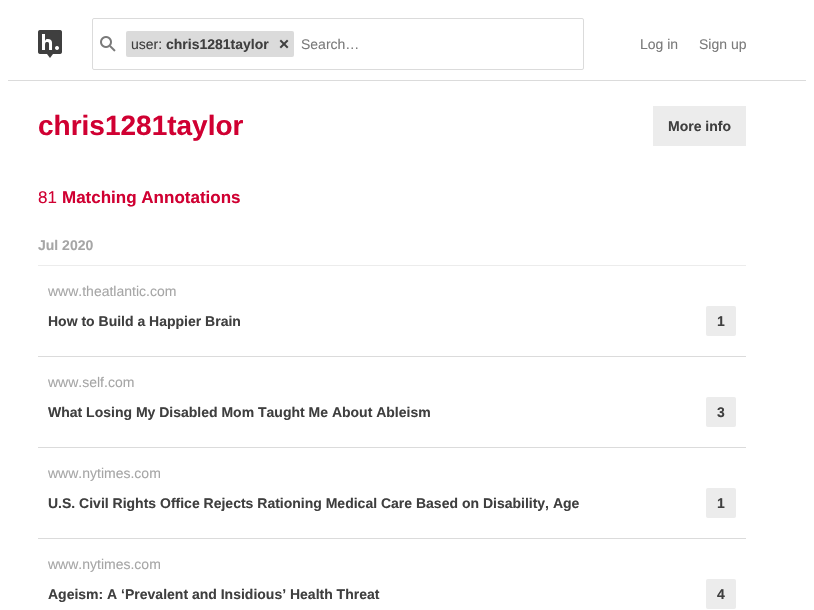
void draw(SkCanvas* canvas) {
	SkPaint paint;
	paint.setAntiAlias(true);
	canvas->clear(0xffffffff);
	paint.setColor(0xffdbdbdb);
	canvas->drawRect(SkRect::MakeXYWH(8, 80, 798, 1), paint);
	canvas->drawImageRect(SkImages::DeferredFromEncodedData(SkData::MakeFromFileName("img1.png")), SkRect::MakeXYWH(38, 30, 24, 28), SkSamplingOptions());
	paint.setStroke(true);
	paint.setStrokeWidth(1);
	canvas->drawRoundRect(SkRect::MakeXYWH(92.5, 18.5, 491, 51), 1.5, 1.5, paint);
	canvas->drawImageRect(SkImages::DeferredFromEncodedData(SkData::MakeFromFileName("img2.png")), SkRect::MakeXYWH(100, 36, 16, 16), SkSamplingOptions());
	paint.setStroke(false);
	canvas->drawRoundRect(SkRect::MakeXYWH(126, 31, 168, 26), 2, 2, paint);
	SkFont f1(fontMgr->matchFamilyStyle("Liberation Sans", SkFontStyle::Normal()), 14);
	f1.setSubpixel(true);
	paint.setColor(0xff3f3f3f);
	canvas->drawString("user:", 131, 49, f1, paint);
	SkFont f2(fontMgr->matchFamilyStyle("Liberation Sans", SkFontStyle::Bold()), 14);
	f2.setSubpixel(true);
	canvas->drawString("chris1281taylor", 166, 49, f2, paint);
	canvas->drawImageRect(SkImages::DeferredFromEncodedData(SkData::MakeFromFileName("img3.png")), SkRect::MakeXYWH(279, 39, 10, 10), SkSamplingOptions());
	paint.setColor(0xff7a7a7a);
	canvas->drawString("Search…", 301, 49, f1, paint);
	canvas->drawString("Log in", 640, 49, f1, paint);
	canvas->drawString("Sign up", 699, 49, f1, paint);
	SkFont f3(fontMgr->matchFamilyStyle("Liberation Sans", SkFontStyle::Bold()), 28);
	f3.setSubpixel(true);
	paint.setColor(0xffd00032);
	canvas->drawString("chris1281taylor", 38, 135, f3, paint);
	paint.setColor(0xffececec);
	canvas->drawRect(SkRect::MakeXYWH(653, 106, 93, 40), paint);
	paint.setColor(0xff3f3f3f);
	canvas->drawString("More info", 668, 131, f2, paint);
	SkFont f4(fontMgr->matchFamilyStyle("Liberation Sans", SkFontStyle::Normal()), 17);
	f4.setSubpixel(true);
	paint.setColor(0xffd00032);
	canvas->drawString("81", 38, 203, f4, paint);
	SkFont f5(fontMgr->matchFamilyStyle("Liberation Sans", SkFontStyle::Bold()), 17);
	f5.setSubpixel(true);
	canvas->drawString("Matching Annotations", 62, 203, f5, paint);
	paint.setColor(0xffececec);
	canvas->drawRect(SkRect::MakeXYWH(38, 265, 708, 1), paint);
	paint.setColor(0xffa6a6a6);
	canvas->drawString("Jul 2020", 38, 250, f2, paint);
	paint.setColor(0xffdbdbdb);
	canvas->drawRect(SkRect::MakeXYWH(38, 356, 708, 1), paint);
	paint.setColor(0xffa6a6a6);
	canvas->drawString("www.theatlantic.com", 48, 296, f1, paint);
	paint.setColor(0xff3f3f3f);
	canvas->drawString("How to Build a Happier Brain", 48, 326, f2, paint);
	paint.setColor(0xffececec);
	canvas->drawRoundRect(SkRect::MakeXYWH(706, 306, 30, 30), 2, 2, paint);
	paint.setColor(0xff3f3f3f);
	canvas->drawString("1", 717, 326, f2, paint);
	paint.setColor(0xffdbdbdb);
	canvas->drawRect(SkRect::MakeXYWH(38, 447, 708, 1), paint);
	paint.setColor(0xffa6a6a6);
	canvas->drawString("www.self.com", 48, 387, f1, paint);
	paint.setColor(0xff3f3f3f);
	canvas->drawString("What Losing My Disabled Mom Taught Me About Ableism", 48, 417, f2, paint);
	paint.setColor(0xffececec);
	canvas->drawRoundRect(SkRect::MakeXYWH(706, 397, 30, 30), 2, 2, paint);
	paint.setColor(0xff3f3f3f);
	canvas->drawString("3", 717, 417, f2, paint);
	paint.setColor(0xffdbdbdb);
	canvas->drawRect(SkRect::MakeXYWH(38, 538, 708, 1), paint);
	paint.setColor(0xffa6a6a6);
	canvas->drawString("www.nytimes.com", 48, 478, f1, paint);
	paint.setColor(0xff3f3f3f);
	canvas->drawString("U.S. Civil Rights Office Rejects Rationing Medical Care Based on Disability, Age", 48, 508, f2, paint);
	paint.setColor(0xffececec);
	canvas->drawRoundRect(SkRect::MakeXYWH(706, 488, 30, 30), 2, 2, paint);
	paint.setColor(0xff3f3f3f);
	canvas->drawString("1", 717, 508, f2, paint);
	paint.setColor(0xffa6a6a6);
	canvas->drawString("www.nytimes.com", 48, 569, f1, paint);
	paint.setColor(0xff3f3f3f);
	canvas->drawString("Ageism: A ‘Prevalent and Insidious’ Health Threat", 48, 599, f2, paint);
	paint.setColor(0xffececec);
	canvas->drawRoundRect(SkRect::MakeXYWH(706, 579, 30, 30), 2, 2, paint);
	paint.setColor(0xff3f3f3f);
	canvas->drawString("4", 717, 599, f2, paint);
}
